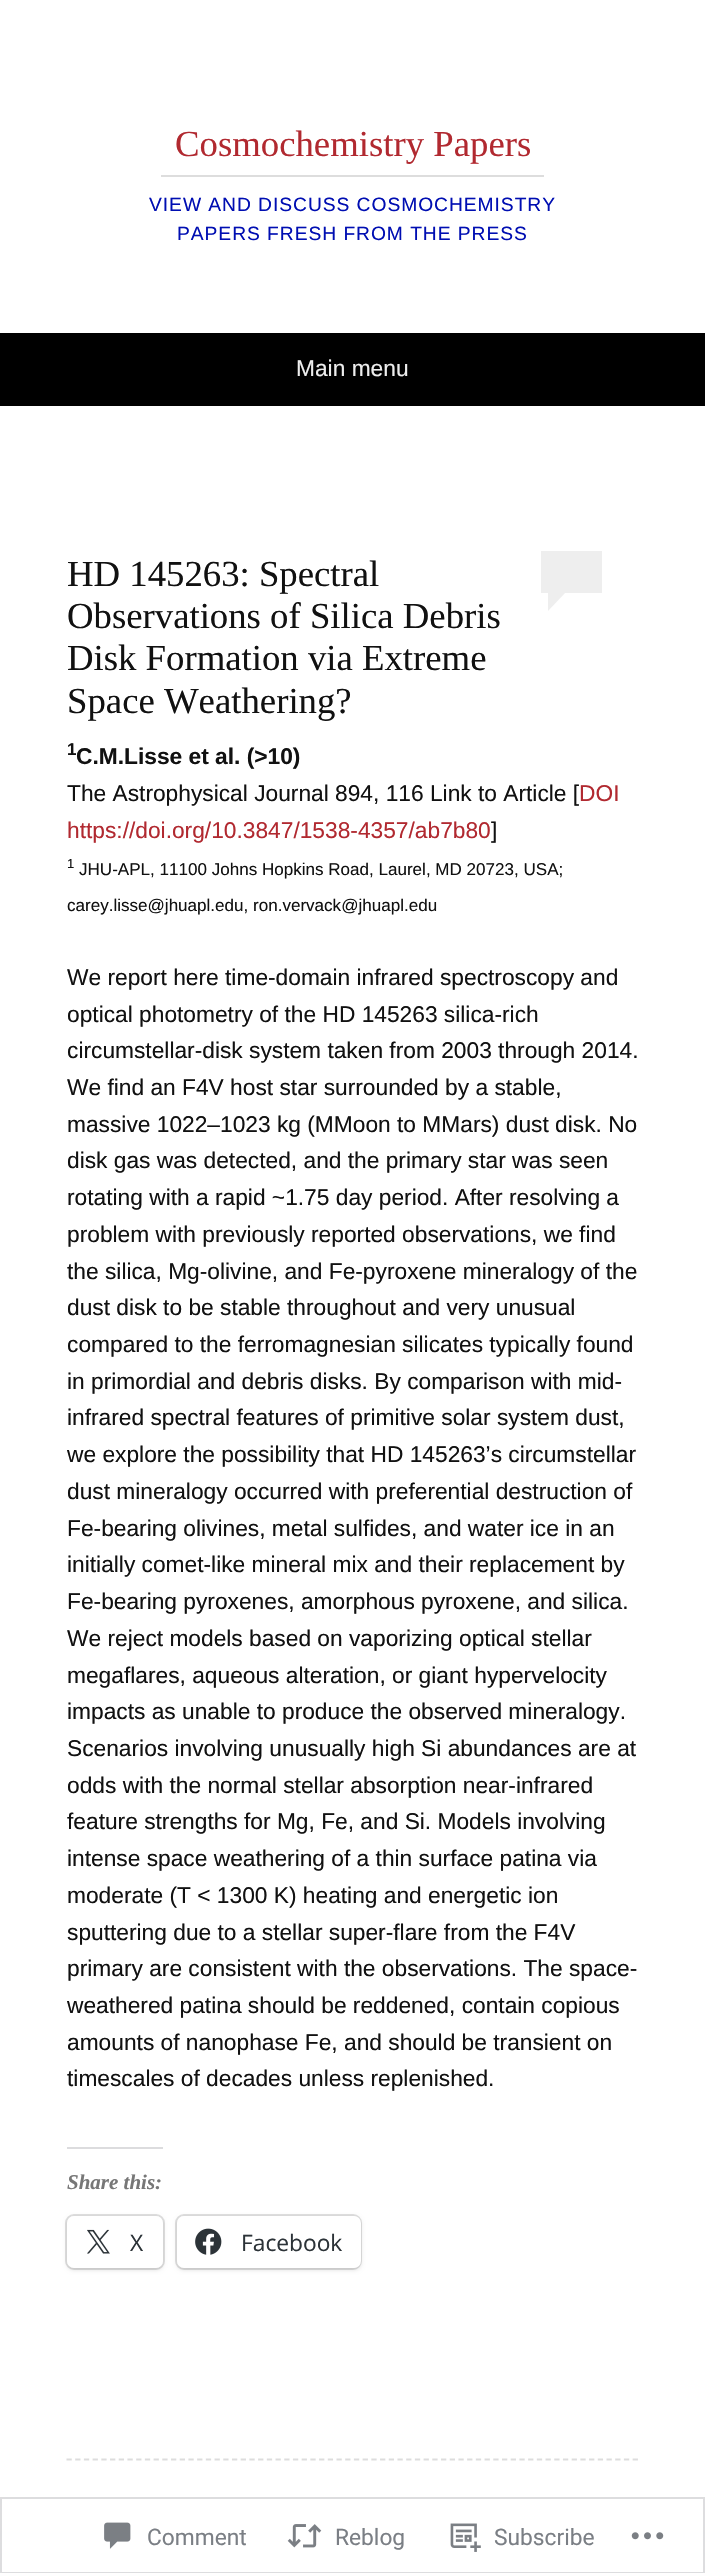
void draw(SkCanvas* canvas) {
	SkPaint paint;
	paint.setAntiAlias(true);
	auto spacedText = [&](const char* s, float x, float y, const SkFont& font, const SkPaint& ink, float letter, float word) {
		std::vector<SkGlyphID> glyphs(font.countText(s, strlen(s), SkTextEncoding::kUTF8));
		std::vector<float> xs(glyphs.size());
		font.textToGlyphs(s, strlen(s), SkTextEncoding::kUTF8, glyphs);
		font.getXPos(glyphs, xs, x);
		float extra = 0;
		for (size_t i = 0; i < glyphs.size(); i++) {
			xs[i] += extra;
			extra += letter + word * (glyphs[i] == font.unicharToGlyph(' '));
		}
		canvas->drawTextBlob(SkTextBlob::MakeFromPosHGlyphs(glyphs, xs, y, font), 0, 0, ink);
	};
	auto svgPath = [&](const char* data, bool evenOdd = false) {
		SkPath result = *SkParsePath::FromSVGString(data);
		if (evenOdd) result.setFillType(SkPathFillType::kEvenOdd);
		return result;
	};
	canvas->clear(0xffffffff);
	paint.setColor(0xffdddddd);
	canvas->drawRect(SkRect::MakeXYWH(161, 175, 383, 2), paint);
	SkFont f1(fontMgr->matchFamilyStyle("Liberation Serif", SkFontStyle::Normal()), 36.75);
	f1.setSubpixel(true);
	paint.setColor(0xffb12930);
	canvas->drawString("Cosmochemistry Papers", 175, 156, f1, paint);
	SkFont f2(fontMgr->matchFamilyStyle("Liberation Sans", SkFontStyle::Normal()), 19.25);
	f2.setSubpixel(true);
	paint.setColor(0xff000eb2);
	spacedText("VIEW AND DISCUSS COSMOCHEMISTRY", 149, 211, f2, paint, 0.95, 0);
	spacedText("PAPERS FRESH FROM THE PRESS", 177, 240, f2, paint, 0.95, 0);
	paint.setColor(0xff000000);
	canvas->drawRect(SkRect::MakeXYWH(0, 333, 705, 73), paint);
	SkFont f3(fontMgr->matchFamilyStyle("Liberation Sans", SkFontStyle::Normal()), 22.75);
	f3.setSubpixel(true);
	paint.setColor(0xffeeeeee);
	canvas->drawString("Main menu", 296, 376, f3, paint);
	paint.setColor(0xff111111);
	canvas->drawString("HD 145263: Spectral", 67, 586, f1, paint);
	canvas->drawString("Observations of Silica Debris", 67, 628, f1, paint);
	canvas->drawString("Disk Formation via Extreme", 67, 670, f1, paint);
	canvas->drawString("Space Weathering?", 67, 713, f1, paint);
	paint.setColor(0xffeeeeee);
	canvas->drawRect(SkRect::MakeXYWH(541, 551, 61, 42), paint);
	canvas->drawPath(svgPath("M548 611V593H565Z"), paint);
	SkFont f4(fontMgr->matchFamilyStyle("Liberation Sans", SkFontStyle::Bold()), 17.05);
	f4.setSubpixel(true);
	paint.setColor(0xff111111);
	canvas->drawString("1", 67, 755, f4, paint);
	SkFont f5(fontMgr->matchFamilyStyle("Liberation Sans", SkFontStyle::Bold()), 22.75);
	f5.setSubpixel(true);
	canvas->drawString("C.M.Lisse et al. (>10)", 76, 764, f5, paint);
	canvas->drawString("The Astrophysical Journal 894, 116 Link to Article [", 67, 801, f3, paint);
	paint.setColor(0xffb12930);
	canvas->drawString("DOI", 579, 801, f3, paint);
	canvas->drawString("https://doi.org/10.3847/1538-4357/ab7b80", 67, 838, f3, paint);
	paint.setColor(0xff111111);
	canvas->drawString("]", 491, 838, f3, paint);
	SkFont f6(fontMgr->matchFamilyStyle("Liberation Sans", SkFontStyle::Normal()), 13);
	f6.setSubpixel(true);
	canvas->drawString("1", 67, 868, f6, paint);
	SkFont f7(fontMgr->matchFamilyStyle("Liberation Sans", SkFontStyle::Normal()), 17.05);
	f7.setSubpixel(true);
	canvas->drawString("JHU-APL, 11100 Johns Hopkins Road, Laurel, MD 20723, USA;", 79, 875, f7, paint);
	canvas->drawString("carey.lisse@jhuapl.edu, ron.vervack@jhuapl.edu", 67, 911, f7, paint);
	canvas->drawString("We report here time-domain infrared spectroscopy and", 67, 985, f3, paint);
	canvas->drawString("optical photometry of the HD 145263 silica-rich", 67, 1022, f3, paint);
	canvas->drawString("circumstellar-disk system taken from 2003 through 2014.", 67, 1058, f3, paint);
	canvas->drawString("We find an F4V host star surrounded by a stable,", 67, 1095, f3, paint);
	canvas->drawString("massive 1022–1023 kg (MMoon to MMars) dust disk. No", 67, 1132, f3, paint);
	canvas->drawString("disk gas was detected, and the primary star was seen", 67, 1168, f3, paint);
	canvas->drawString("rotating with a rapid ~1.75 day period. After resolving a", 67, 1205, f3, paint);
	canvas->drawString("problem with previously reported observations, we find", 67, 1242, f3, paint);
	canvas->drawString("the silica, Mg-olivine, and Fe-pyroxene mineralogy of the", 67, 1279, f3, paint);
	canvas->drawString("dust disk to be stable throughout and very unusual", 67, 1315, f3, paint);
	canvas->drawString("compared to the ferromagnesian silicates typically found", 67, 1352, f3, paint);
	canvas->drawString("in primordial and debris disks. By comparison with mid-", 67, 1389, f3, paint);
	canvas->drawString("infrared spectral features of primitive solar system dust,", 67, 1425, f3, paint);
	canvas->drawString("we explore the possibility that HD 145263’s circumstellar", 67, 1462, f3, paint);
	canvas->drawString("dust mineralogy occurred with preferential destruction of", 67, 1499, f3, paint);
	canvas->drawString("Fe-bearing olivines, metal sulfides, and water ice in an", 67, 1536, f3, paint);
	canvas->drawString("initially comet-like mineral mix and their replacement by", 67, 1572, f3, paint);
	canvas->drawString("Fe-bearing pyroxenes, amorphous pyroxene, and silica.", 67, 1609, f3, paint);
	canvas->drawString("We reject models based on vaporizing optical stellar", 67, 1646, f3, paint);
	canvas->drawString("megaflares, aqueous alteration, or giant hypervelocity", 67, 1683, f3, paint);
	canvas->drawString("impacts as unable to produce the observed mineralogy.", 67, 1719, f3, paint);
	canvas->drawString("Scenarios involving unusually high Si abundances are at", 67, 1756, f3, paint);
	canvas->drawString("odds with the normal stellar absorption near-infrared", 67, 1793, f3, paint);
	canvas->drawString("feature strengths for Mg, Fe, and Si. Models involving", 67, 1829, f3, paint);
	canvas->drawString("intense space weathering of a thin surface patina via", 67, 1866, f3, paint);
	canvas->drawString("moderate (T < 1300 K) heating and energetic ion", 67, 1903, f3, paint);
	canvas->drawString("sputtering due to a stellar super-flare from the F4V", 67, 1940, f3, paint);
	canvas->drawString("primary are consistent with the observations. The space-", 67, 1976, f3, paint);
	canvas->drawString("weathered patina should be reddened, contain copious", 67, 2013, f3, paint);
	canvas->drawString("amounts of nanophase Fe, and should be transient on", 67, 2050, f3, paint);
	canvas->drawString("timescales of decades unless replenished.", 67, 2086, f3, paint);
	paint.setColor(0xffdcdcde);
	canvas->drawRect(SkRect::MakeXYWH(67, 2147, 96, 2), paint);
	SkFont f8(fontMgr->matchFamilyStyle("Liberation Serif", SkFontStyle::BoldItalic()), 21);
	f8.setSubpixel(true);
	paint.setColor(0xff777777);
	canvas->drawString("Share this:", 67, 2189, f8, paint);
	paint.setStroke(true);
	paint.setStrokeWidth(2);
	paint.setColor(0xffe0e0e0);
	canvas->drawRoundRect(SkRect::MakeXYWH(66, 2215, 98, 54), 8, 8, paint);
	paint.setStroke(false);
	paint.setColor(0x1f000000);
	paint.setMaskFilter(SkMaskFilter::MakeBlur(kNormal_SkBlurStyle, 2));
	canvas->drawRoundRect(SkRect::MakeXYWH(67, 2217, 96, 53), 7, 7, paint);
	paint.setMaskFilter(nullptr);
	paint.setColor(0xffffffff);
	canvas->drawRoundRect(SkRect::MakeXYWH(67, 2216, 96, 52), 7, 7, paint);
	canvas->drawImageRect(SkImages::DeferredFromEncodedData(SkData::MakeFromFileName("img1.png")), SkRect::MakeXYWH(87, 2229, 23, 25), SkSamplingOptions());
	SkFont f9(fontMgr->matchFamilyStyle("Open Sans", SkFontStyle::Normal()), 22.75);
	f9.setSubpixel(true);
	paint.setColor(0xff2c3338);
	canvas->drawString("X", 130, 2251, f9, paint);
	paint.setStroke(true);
	paint.setColor(0xffe0e0e0);
	canvas->drawRoundRect(SkRect::MakeXYWH(176, 2215, 185, 54), 8, 8, paint);
	paint.setStroke(false);
	paint.setColor(0x1f000000);
	paint.setMaskFilter(SkMaskFilter::MakeBlur(kNormal_SkBlurStyle, 2));
	canvas->drawRoundRect(SkRect::MakeXYWH(177, 2217, 184, 53), 7, 7, paint);
	paint.setMaskFilter(nullptr);
	paint.setColor(0xffffffff);
	canvas->drawRoundRect(SkRect::MakeXYWH(177, 2216, 184, 52), 7, 7, paint);
	canvas->drawImageRect(SkImages::DeferredFromEncodedData(SkData::MakeFromFileName("img2.png")), SkRect::MakeXYWH(195, 2228, 27, 27), SkSamplingOptions());
	paint.setColor(0xff2c3338);
	canvas->drawString("Facebook", 241, 2251, f9, paint);
	paint.setStroke(true);
	paint.setStrokeWidth(1.8);
	paint.setColor(0xffdddddd);
	paint.setPathEffect(SkDashPathEffect::Make({{5.25f, 3.46f}}, 0));
	canvas->drawPath(svgPath("M66.5 2459.5H639"), paint);
	paint.setPathEffect(nullptr);
	paint.setStrokeWidth(2);
	paint.setColor(0xfadcdcde);
	canvas->drawRect(SkRect::MakeXYWH(1, 2498, 703, 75), paint);
	canvas->drawImageRect(SkImages::DeferredFromEncodedData(SkData::MakeFromFileName("img3.png")), SkRect::MakeXYWH(104, 2522, 27, 27), SkSamplingOptions());
	SkFont f10(fontMgr->matchFamilyStyle("Roboto", SkFontStyle::Normal()), 22.75);
	f10.setSubpixel(true);
	paint.setStroke(false);
	paint.setColor(0xff7b7f85);
	canvas->drawString("Comment", 147, 2545, f10, paint);
	canvas->drawImageRect(SkImages::DeferredFromEncodedData(SkData::MakeFromFileName("img4.png")), SkRect::MakeXYWH(287, 2524, 35, 24), SkSamplingOptions());
	canvas->drawString("Reblog", 335, 2545, f10, paint);
	canvas->drawImageRect(SkImages::DeferredFromEncodedData(SkData::MakeFromFileName("img5.png")), SkRect::MakeXYWH(450, 2523, 31, 29), SkSamplingOptions());
	canvas->drawString("Subscribe", 494, 2545, f10, paint);
	canvas->drawImageRect(SkImages::DeferredFromEncodedData(SkData::MakeFromFileName("img6.png")), SkRect::MakeXYWH(631, 2532, 33, 8), SkSamplingOptions());
}
